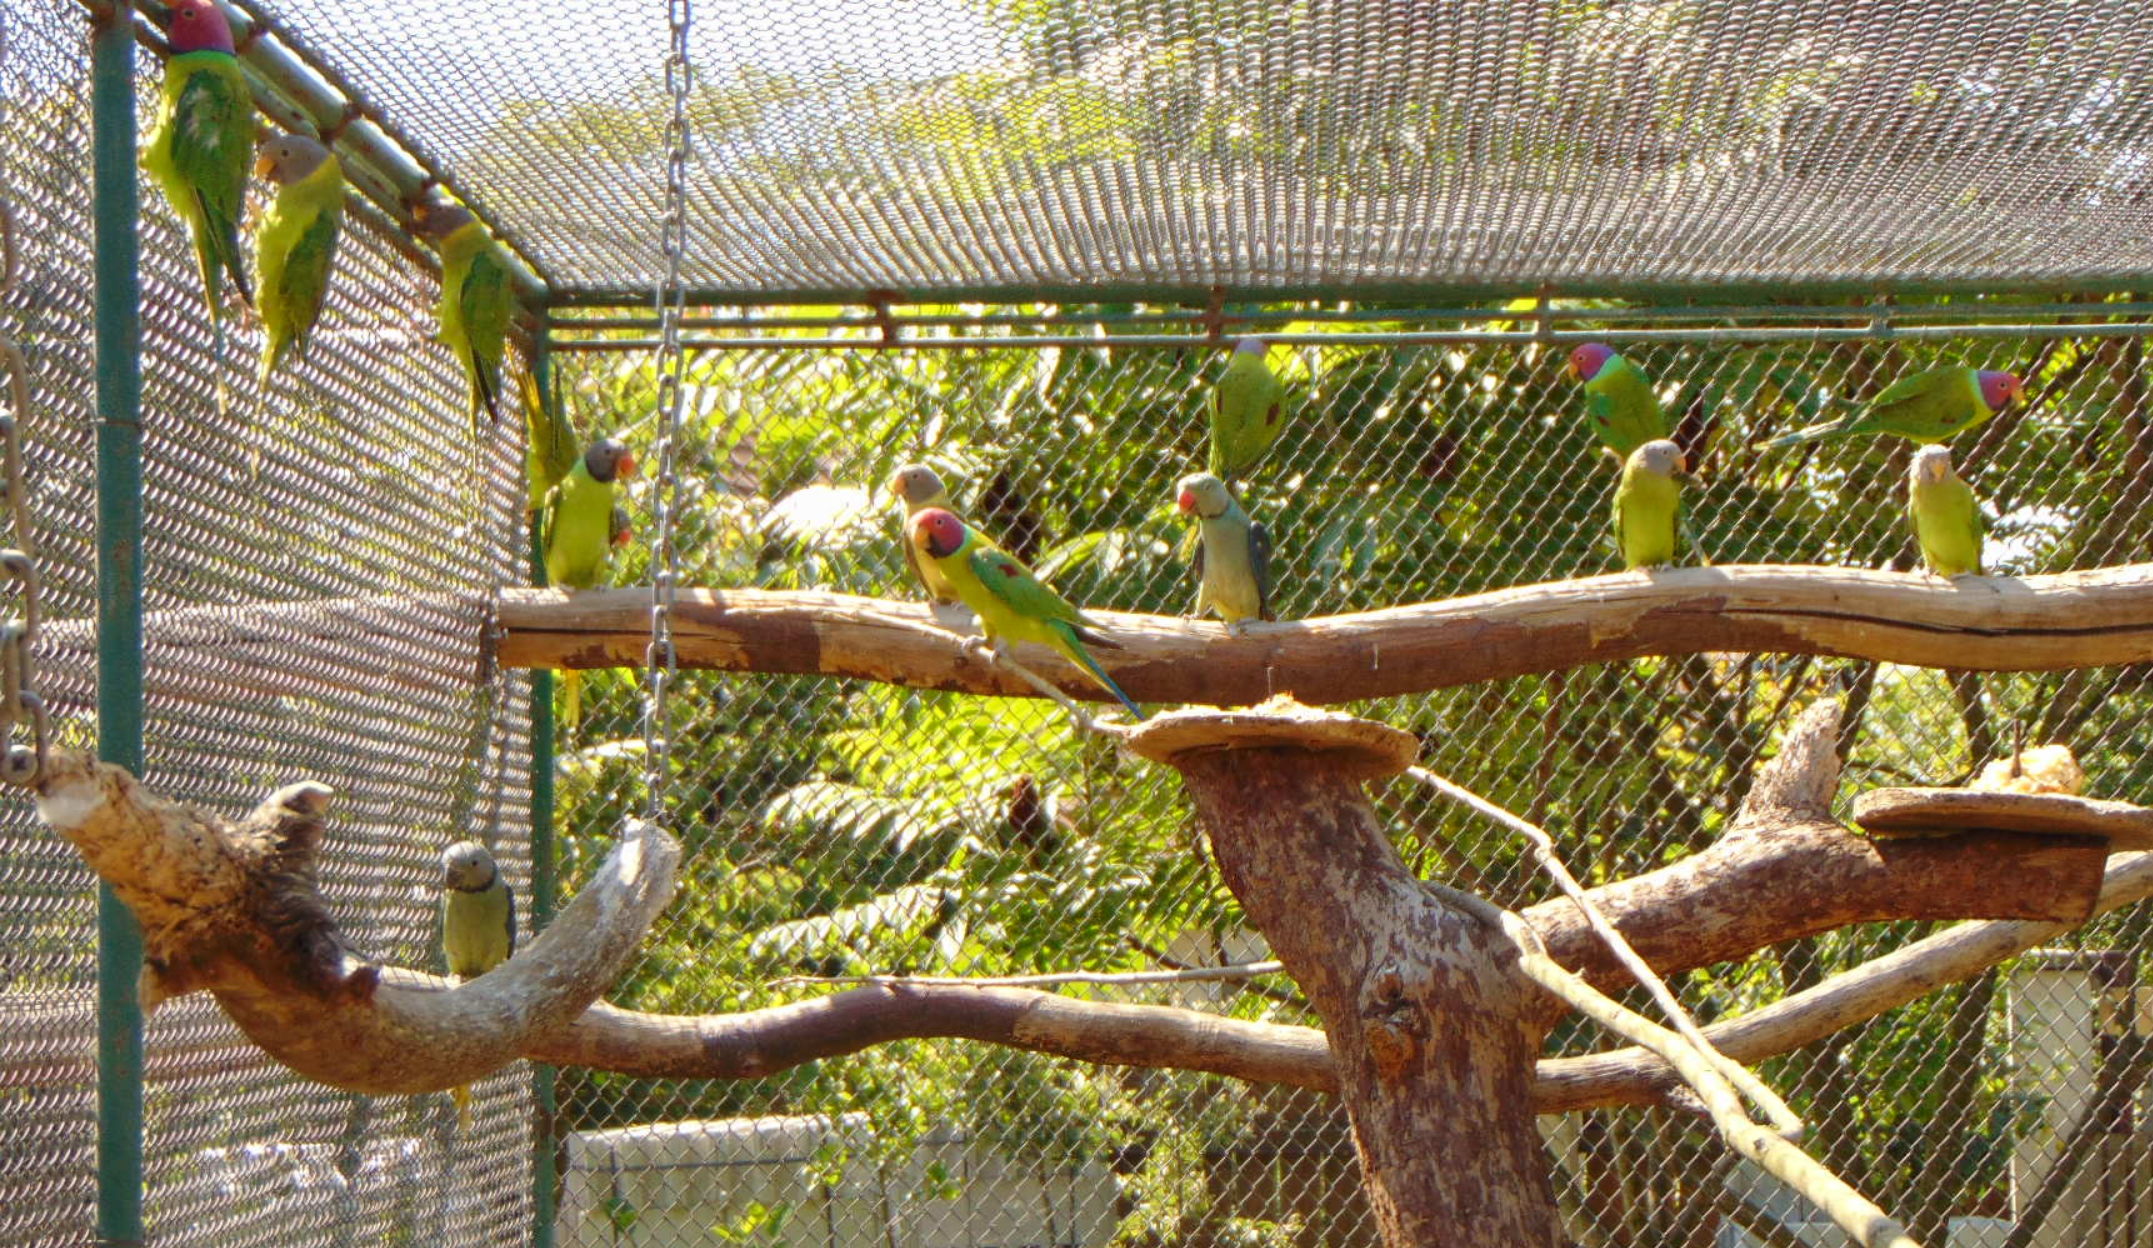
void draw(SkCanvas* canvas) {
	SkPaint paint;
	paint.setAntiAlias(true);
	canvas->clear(0xffffffff);
	canvas->drawImageRect(SkImages::DeferredFromEncodedData(SkData::MakeFromFileName("img1.png")), SkRect::MakeXYWH(0, 0, 2153, 1248), SkSamplingOptions());
}
